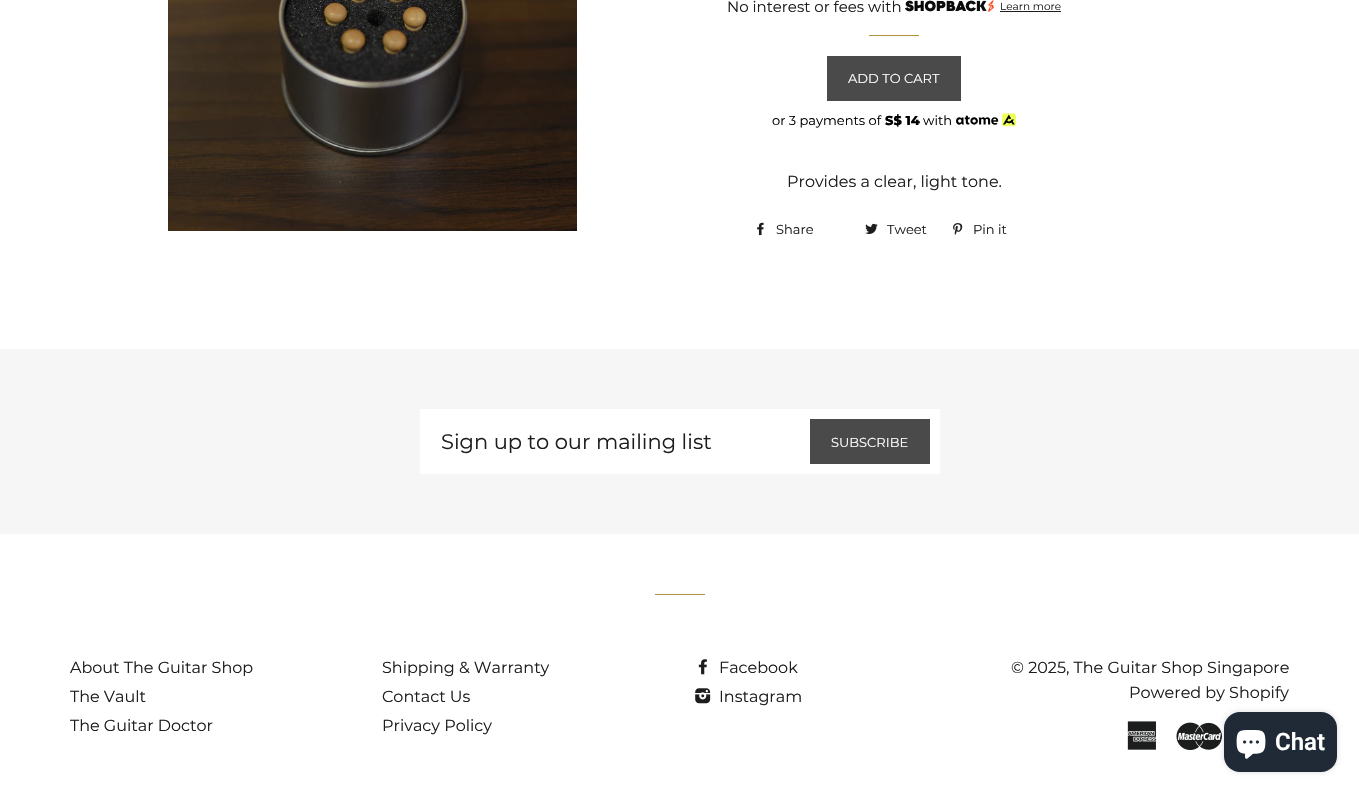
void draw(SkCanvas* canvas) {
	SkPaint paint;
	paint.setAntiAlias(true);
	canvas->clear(0xffffffff);
	canvas->drawImageRect(SkImages::DeferredFromEncodedData(SkData::MakeFromFileName("img1.png")), SkRect::MakeXYWH(168, 0, 409, 231), SkSamplingOptions());
	SkFont f1(fontMgr->matchFamilyStyle("Montserrat", SkFontStyle(100, SkFontStyle::kNormal_Width, SkFontStyle::kUpright_Slant)), 15);
	f1.setSubpixel(true);
	paint.setColor(0xff1c1d1d);
	canvas->drawString("No interest or fees with", 727, 12, f1, paint);
	canvas->drawImageRect(SkImages::DeferredFromEncodedData(SkData::MakeFromFileName("img2.png")), SkRect::MakeXYWH(905, 0, 89, 12), SkSamplingOptions());
	SkFont f2(fontMgr->matchFamilyStyle("Montserrat", SkFontStyle(100, SkFontStyle::kNormal_Width, SkFontStyle::kUpright_Slant)), 10.5);
	f2.setSubpixel(true);
	canvas->drawString("Learn more", 1000, 10, f2, paint);
	canvas->drawRect(SkRect::MakeXYWH(1000, 11, 61, 1), paint);
	paint.setColor(0xffb0953a);
	canvas->drawRect(SkRect::MakeXYWH(869, 35, 50, 1), paint);
	paint.setColor(0xff4a4a4a);
	canvas->drawRect(SkRect::MakeXYWH(827, 56, 134, 45), paint);
	SkFont f3(fontMgr->matchFamilyStyle("Montserrat", SkFontStyle(100, SkFontStyle::kNormal_Width, SkFontStyle::kUpright_Slant)), 13);
	f3.setSubpixel(true);
	paint.setColor(0xffffffff);
	canvas->drawString("ADD TO CART", 848, 83, f3, paint);
	paint.setColor(0xff000000);
	canvas->drawString("or 3 payments of", 772, 125, f3, paint);
	SkFont f4(fontMgr->matchFamilyStyle("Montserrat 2", SkFontStyle(100, SkFontStyle::kNormal_Width, SkFontStyle::kUpright_Slant)), 13);
	f4.setSubpixel(true);
	canvas->drawString("S$ 14", 885, 125, f4, paint);
	canvas->drawString("with", 923, 125, f3, paint);
	canvas->drawImageRect(SkImages::DeferredFromEncodedData(SkData::MakeFromFileName("img3.png")), SkRect::MakeXYWH(956, 113, 60, 14), SkSamplingOptions());
	SkFont f5(fontMgr->matchFamilyStyle("Montserrat", SkFontStyle(100, SkFontStyle::kNormal_Width, SkFontStyle::kUpright_Slant)), 16);
	f5.setSubpixel(true);
	paint.setColor(0xff1c1d1d);
	canvas->drawString("Provides a clear, light tone.", 787, 187, f5, paint);
	canvas->drawImageRect(SkImages::DeferredFromEncodedData(SkData::MakeFromFileName("img4.png")), SkRect::MakeXYWH(757, 222, 7, 14), SkSamplingOptions());
	canvas->drawString("Share", 776, 234, f3, paint);
	canvas->drawImageRect(SkImages::DeferredFromEncodedData(SkData::MakeFromFileName("img5.png")), SkRect::MakeXYWH(865, 223, 13, 11), SkSamplingOptions());
	canvas->drawString("Tweet", 887, 234, f3, paint);
	canvas->drawImageRect(SkImages::DeferredFromEncodedData(SkData::MakeFromFileName("img6.png")), SkRect::MakeXYWH(953, 223, 10, 12), SkSamplingOptions());
	canvas->drawString("Pin it", 973, 234, f3, paint);
	paint.setColor(0xfff6f6f6);
	canvas->drawRect(SkRect::MakeXYWH(0, 349, 1359, 185), paint);
	paint.setColor(0xffffffff);
	canvas->drawRect(SkRect::MakeXYWH(420, 409, 520, 65), paint);
	SkFont f6(fontMgr->matchFamilyStyle("Montserrat", SkFontStyle(100, SkFontStyle::kNormal_Width, SkFontStyle::kUpright_Slant)), 21);
	f6.setSubpixel(true);
	paint.setColor(0xff1c1d1d);
	canvas->drawString("Sign up to our mailing list", 441, 449, f6, paint);
	paint.setColor(0xff4a4a4a);
	canvas->drawRect(SkRect::MakeXYWH(810, 419, 120, 45), paint);
	paint.setColor(0xffffffff);
	canvas->drawString("SUBSCRIBE", 831, 447, f3, paint);
	paint.setColor(0xffb0953a);
	canvas->drawRect(SkRect::MakeXYWH(655, 594, 50, 1), paint);
	paint.setColor(0xff1c1d1d);
	canvas->drawString("About The Guitar Shop", 70, 673, f5, paint);
	canvas->drawString("The Vault", 70, 702, f5, paint);
	canvas->drawString("The Guitar Doctor", 70, 731, f5, paint);
	canvas->drawString("Shipping & Warranty", 382, 673, f5, paint);
	canvas->drawString("Contact Us", 382, 702, f5, paint);
	canvas->drawString("Privacy Policy", 382, 731, f5, paint);
	canvas->drawImageRect(SkImages::DeferredFromEncodedData(SkData::MakeFromFileName("img7.png")), SkRect::MakeXYWH(698, 659, 9, 16), SkSamplingOptions());
	canvas->drawString("Facebook", 719, 673, f5, paint);
	canvas->drawImageRect(SkImages::DeferredFromEncodedData(SkData::MakeFromFileName("img8.png")), SkRect::MakeXYWH(695, 688, 16, 16), SkSamplingOptions());
	canvas->drawString("Instagram", 719, 702, f5, paint);
	canvas->drawString("© 2025, The Guitar Shop Singapore", 1011, 673, f5, paint);
	canvas->drawString("Powered by Shopify", 1129, 698, f5, paint);
	canvas->drawImageRect(SkImages::DeferredFromEncodedData(SkData::MakeFromFileName("img9.png")), SkRect::MakeXYWH(1127, 721, 30, 29), SkSamplingOptions());
	canvas->drawImageRect(SkImages::DeferredFromEncodedData(SkData::MakeFromFileName("img10.png")), SkRect::MakeXYWH(1176, 722, 46, 29), SkSamplingOptions());
	paint.setColor(0x26000000);
	paint.setMaskFilter(SkMaskFilter::MakeBlur(kNormal_SkBlurStyle, 2.5));
	canvas->drawRoundRect(SkRect::MakeXYWH(1224, 712, 113, 60), 16, 16, paint);
	paint.setMaskFilter(nullptr);
	paint.setColor(0xff202a36);
	canvas->drawRoundRect(SkRect::MakeXYWH(1224, 712, 113, 60), 16, 16, paint);
	canvas->drawImageRect(SkImages::DeferredFromEncodedData(SkData::MakeFromFileName("img11.png")), SkRect::MakeXYWH(1236, 730, 30, 29), SkSamplingOptions());
	SkFont f7(fontMgr->matchFamilyStyle("Roboto", SkFontStyle(600, SkFontStyle::kNormal_Width, SkFontStyle::kUpright_Slant)), 24);
	f7.setSubpixel(true);
	paint.setColor(0xffffffff);
	canvas->drawString("Chat", 1275, 750, f7, paint);
}
